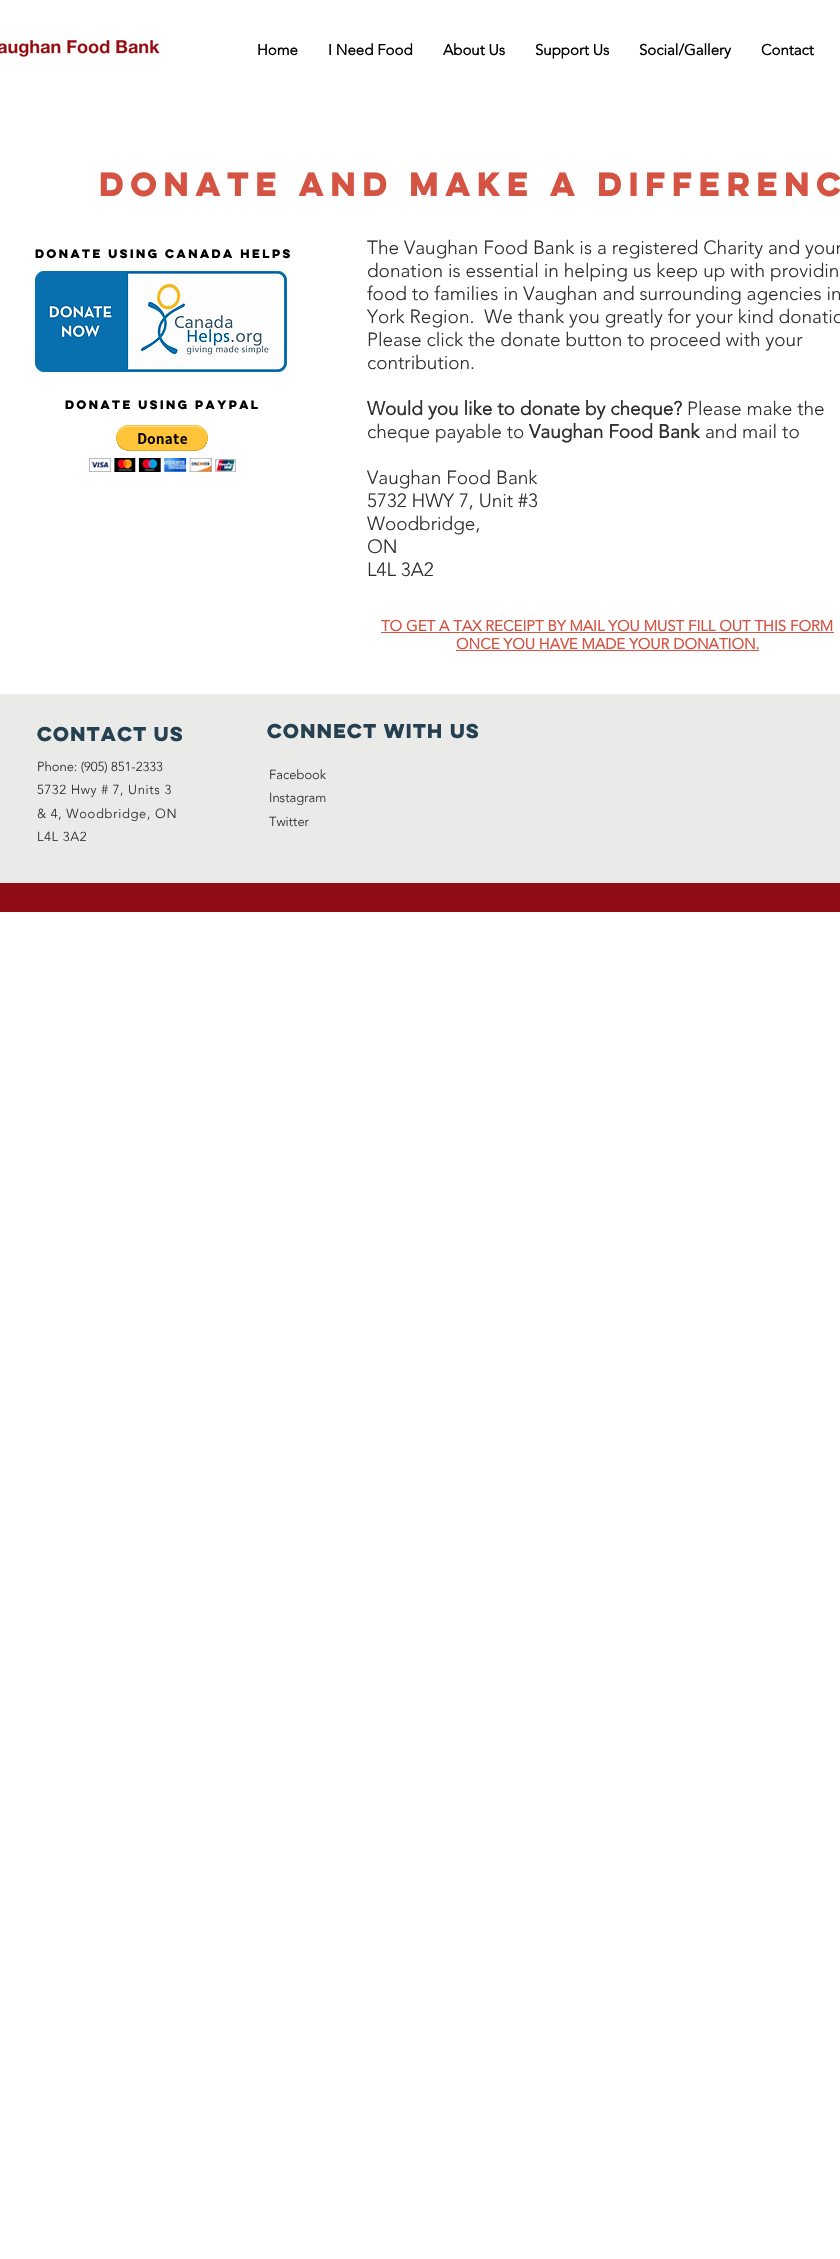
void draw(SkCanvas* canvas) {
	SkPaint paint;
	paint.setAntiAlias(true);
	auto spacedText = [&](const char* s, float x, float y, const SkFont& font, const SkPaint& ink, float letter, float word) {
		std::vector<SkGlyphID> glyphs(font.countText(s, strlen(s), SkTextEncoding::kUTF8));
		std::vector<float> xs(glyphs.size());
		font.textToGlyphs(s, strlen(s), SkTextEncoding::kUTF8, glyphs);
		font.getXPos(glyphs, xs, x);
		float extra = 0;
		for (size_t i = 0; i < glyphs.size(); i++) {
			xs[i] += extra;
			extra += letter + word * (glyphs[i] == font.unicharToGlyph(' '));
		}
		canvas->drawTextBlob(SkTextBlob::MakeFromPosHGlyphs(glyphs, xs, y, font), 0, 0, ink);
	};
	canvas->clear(0xffffffff);
	canvas->drawImageRect(SkImages::DeferredFromEncodedData(SkData::MakeFromFileName("img1.png")), SkRect::MakeXYWH(0, 40, 160, 17), SkSamplingOptions());
	SkFont f1(fontMgr->matchFamilyStyle("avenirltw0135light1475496", SkFontStyle::Bold()), 15);
	f1.setSubpixel(true);
	paint.setColor(0xff000000);
	canvas->drawString("Home", 257, 55, f1, paint);
	canvas->drawString("I Need Food", 328, 55, f1, paint);
	canvas->drawString("About Us", 443, 55, f1, paint);
	canvas->drawString("Support Us", 535, 55, f1, paint);
	canvas->drawString("Social/Gallery", 639, 55, f1, paint);
	canvas->drawString("Contact", 761, 55, f1, paint);
	SkFont f2(fontMgr->matchFamilyStyle("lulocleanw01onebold", SkFontStyle::Bold()), 30);
	f2.setSubpixel(true);
	paint.setColor(0xffd55342);
	canvas->drawString("Donate and make a differenc", 99, 196, f2, paint);
	SkFont f3(fontMgr->matchFamilyStyle("lulocleanw01onebold", SkFontStyle::Bold()), 11);
	f3.setSubpixel(true);
	paint.setColor(0xff000000);
	canvas->drawString("DONATE USING CANADA HELPS", 35, 258, f3, paint);
	SkFont f4(fontMgr->matchFamilyStyle("avenirltw0135light1475496", SkFontStyle(300, SkFontStyle::kNormal_Width, SkFontStyle::kUpright_Slant)), 19);
	f4.setSubpixel(true);
	paint.setColor(0xff2f2f2e);
	canvas->drawString("The Vaughan Food Bank is a registered Charity and your", 367, 254, f4, paint);
	canvas->drawString("donation is essential in helping us keep up with providin", 367, 277, f4, paint);
	canvas->drawString("food to families in Vaughan and surrounding agencies in", 367, 300, f4, paint);
	canvas->drawString("York Region.  We thank you greatly for your kind donatio", 367, 323, f4, paint);
	canvas->drawString("Please click the donate button to proceed with your", 367, 346, f4, paint);
	canvas->drawString("contribution.", 367, 369, f4, paint);
	SkFont f5(fontMgr->matchFamilyStyle("avenirltw0135light1475496", SkFontStyle::Bold()), 19);
	f5.setSubpixel(true);
	canvas->drawString("Would you like to donate by cheque?", 367, 415, f5, paint);
	canvas->drawString("Please make the", 687, 415, f4, paint);
	canvas->drawString("cheque payable to", 367, 438, f4, paint);
	canvas->drawString("Vaughan Food Bank", 529, 438, f5, paint);
	canvas->drawString("and mail to", 705, 438, f4, paint);
	canvas->drawString("Vaughan Food Bank", 367, 484, f4, paint);
	canvas->drawString("5732 HWY 7, Unit #3", 367, 507, f4, paint);
	canvas->drawString("Woodbridge,", 367, 530, f4, paint);
	canvas->drawString("ON", 367, 553, f4, paint);
	canvas->drawString("L4L 3A2", 367, 576, f4, paint);
	canvas->drawImageRect(SkImages::DeferredFromEncodedData(SkData::MakeFromFileName("img2.png")), SkRect::MakeXYWH(35, 271, 252, 101), SkSamplingOptions());
	paint.setColor(0xff000000);
	canvas->drawString("DONATE USING PAYPAL", 65, 409, f3, paint);
	canvas->drawImageRect(SkImages::DeferredFromEncodedData(SkData::MakeFromFileName("img3.png")), SkRect::MakeXYWH(89, 425, 147, 47), SkSamplingOptions());
	paint.setColor(0xffd55342);
	canvas->drawString("TO GET A TAX RECEIPT BY MAIL YOU MUST FILL OUT THIS FORM", 381, 631, f1, paint);
	canvas->drawRect(SkRect::MakeXYWH(381, 632, 453, 1), paint);
	canvas->drawString("ONCE YOU HAVE MADE YOUR DONATION.", 456, 649, f1, paint);
	canvas->drawRect(SkRect::MakeXYWH(456, 650, 303, 1), paint);
	paint.setColor(0xffeaeae8);
	canvas->drawRect(SkRect::MakeXYWH(0, 694, 840, 189), paint);
	SkFont f6(fontMgr->matchFamilyStyle("lulocleanw01onebold", SkFontStyle::Bold()), 18);
	f6.setSubpixel(true);
	paint.setColor(0xff254151);
	spacedText("Contact Us", 37, 741, f6, paint, -2.75, 0);
	spacedText("Connect with us", 267, 738, f6, paint, -2.75, 0);
	SkFont f7(fontMgr->matchFamilyStyle("avenirltw0135light1475496", SkFontStyle(300, SkFontStyle::kNormal_Width, SkFontStyle::kUpright_Slant)), 13);
	f7.setSubpixel(true);
	paint.setColor(0xff2f2f2e);
	canvas->drawString("Phone: (905) 851-2333", 37, 771, f7, paint);
	spacedText("5732 Hwy # 7, Units 3", 37, 794, f7, paint, 0.65, 0);
	spacedText("& 4, Woodbridge, ON", 37, 818, f7, paint, 0.65, 0);
	spacedText("L4L 3A2", 37, 841, f7, paint, 0.65, 0);
	canvas->drawString("Facebook", 269, 779, f7, paint);
	canvas->drawString("Instagram", 269, 802, f7, paint);
	canvas->drawString("Twitter", 269, 826, f7, paint);
	paint.setColor(0xff8f0b16);
	canvas->drawRect(SkRect::MakeXYWH(0, 883, 840, 29), paint);
}
